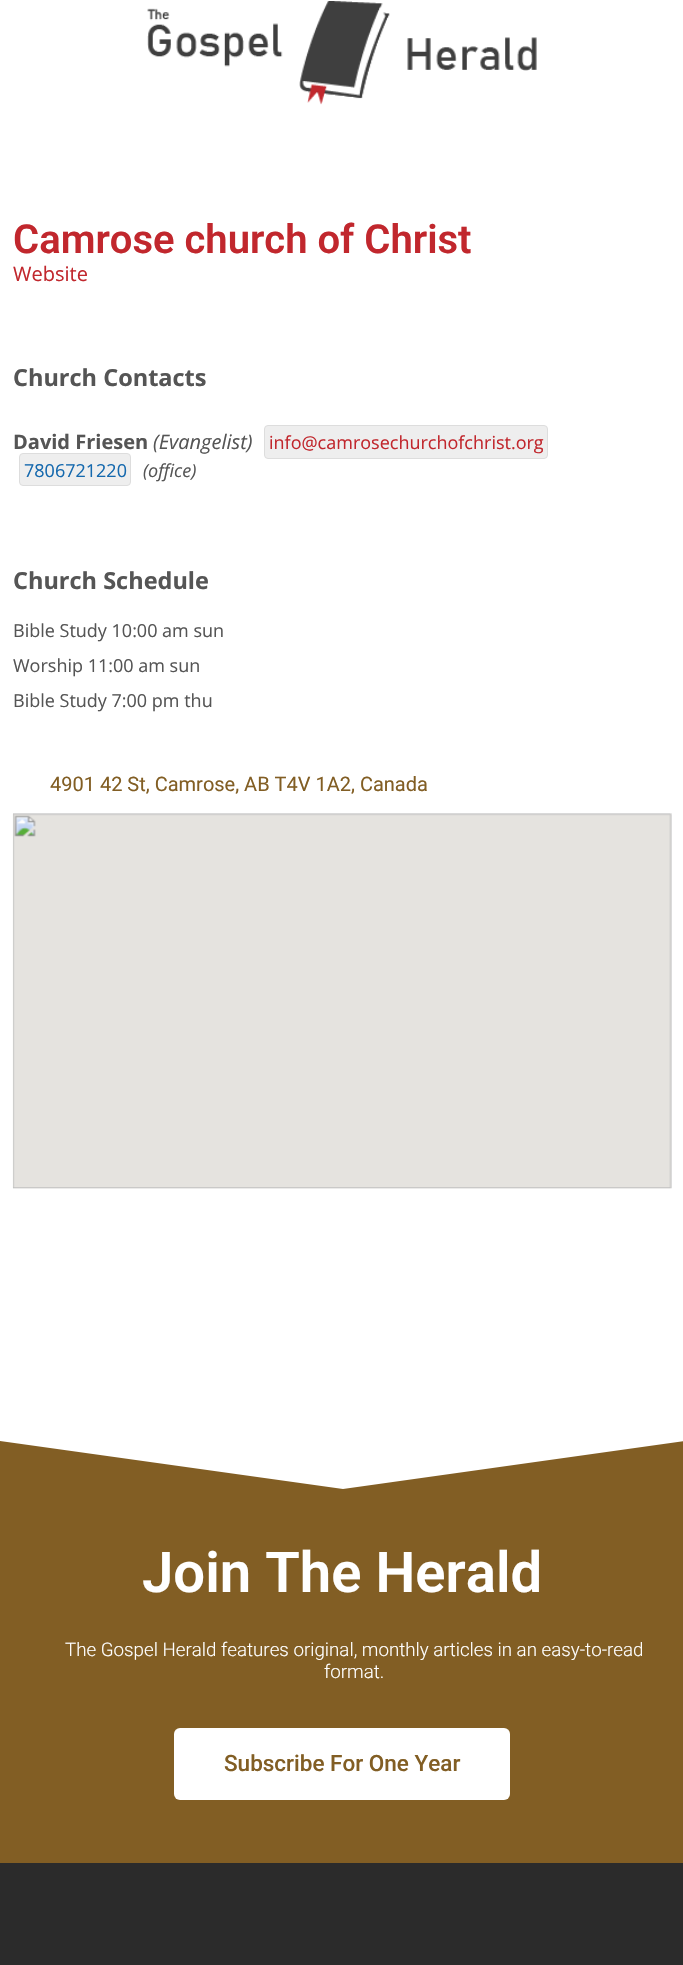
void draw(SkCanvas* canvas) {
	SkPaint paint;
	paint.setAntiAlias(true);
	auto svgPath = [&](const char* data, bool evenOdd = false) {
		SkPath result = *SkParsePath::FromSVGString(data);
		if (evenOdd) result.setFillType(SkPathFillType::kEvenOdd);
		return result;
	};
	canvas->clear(0xffffffff);
	canvas->drawImageRect(SkImages::DeferredFromEncodedData(SkData::MakeFromFileName("img1.png")), SkRect::MakeXYWH(147, 1, 390, 104), SkSamplingOptions());
	SkFont f1(fontMgr->matchFamilyStyle("Roboto", SkFontStyle(600, SkFontStyle::kNormal_Width, SkFontStyle::kUpright_Slant)), 40);
	f1.setSubpixel(true);
	paint.setColor(0xffc1272d);
	canvas->drawString("Camrose church of Christ", 13, 253, f1, paint);
	SkFont f2(fontMgr->matchFamilyStyle("Open Sans", SkFontStyle::Normal()), 20);
	f2.setSubpixel(true);
	canvas->drawString("Website", 13, 281, f2, paint);
	SkFont f3(fontMgr->matchFamilyStyle("Open Sans", SkFontStyle::Bold()), 23.5);
	f3.setSubpixel(true);
	paint.setColor(0xff555555);
	canvas->drawString("Church Contacts", 13, 386, f3, paint);
	SkFont f4(fontMgr->matchFamilyStyle("Open Sans", SkFontStyle::Bold()), 20);
	f4.setSubpixel(true);
	canvas->drawString("David Friesen", 13, 449, f4, paint);
	SkFont f5(fontMgr->matchFamilyStyle("Open Sans", SkFontStyle::Italic()), 20);
	f5.setSubpixel(true);
	canvas->drawString("(Evangelist)", 153, 449, f5, paint);
	paint.setColor(0xffeeeeee);
	canvas->drawRoundRect(SkRect::MakeXYWH(264.5, 425.5, 283, 33), 3.5, 3.5, paint);
	paint.setStroke(true);
	paint.setStrokeWidth(1);
	paint.setColor(0xffdddddd);
	canvas->drawRoundRect(SkRect::MakeXYWH(264.5, 425.5, 283, 33), 3.5, 3.5, paint);
	SkFont f6(fontMgr->matchFamilyStyle("Open Sans", SkFontStyle::Normal()), 18);
	f6.setSubpixel(true);
	paint.setStroke(false);
	paint.setColor(0xffc1272d);
	canvas->drawString("info@camrosechurchofchrist.org", 269, 449, f6, paint);
	paint.setColor(0xffeeeeee);
	canvas->drawRoundRect(SkRect::MakeXYWH(19.5, 453.5, 111, 32), 3.5, 3.5, paint);
	paint.setStroke(true);
	paint.setColor(0xffdddddd);
	canvas->drawRoundRect(SkRect::MakeXYWH(19.5, 453.5, 111, 32), 3.5, 3.5, paint);
	paint.setStroke(false);
	paint.setColor(0xff1569ae);
	canvas->drawString("7806721220", 24, 477, f6, paint);
	SkFont f7(fontMgr->matchFamilyStyle("Open Sans", SkFontStyle::Italic()), 18);
	f7.setSubpixel(true);
	paint.setColor(0xff555555);
	canvas->drawString("(office)", 143, 477, f7, paint);
	canvas->drawString("Church Schedule", 13, 589, f3, paint);
	canvas->drawString("Bible Study 10:00 am sun", 13, 637, f6, paint);
	canvas->drawString("Worship 11:00 am sun", 13, 672, f6, paint);
	canvas->drawString("Bible Study 7:00 pm thu", 13, 707, f6, paint);
	SkFont f8(fontMgr->matchFamilyStyle("Roboto", SkFontStyle::Normal()), 20);
	f8.setSubpixel(true);
	paint.setColor(0xff825e24);
	canvas->drawString("4901 42 St, Camrose, AB T4V 1A2, Canada", 50, 791, f8, paint);
	canvas->drawImageRect(SkImages::DeferredFromEncodedData(SkData::MakeFromFileName("img2.png")), SkRect::MakeXYWH(12, 813, 660, 376), SkSamplingOptions());
	canvas->drawRect(SkRect::MakeXYWH(0, 1441, 683, 422), paint);
	paint.setColor(0xffffffff);
	canvas->drawPath(svgPath("M343 1489L0 1441V1438H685V1441Z"), paint);
	SkFont f9(fontMgr->matchFamilyStyle("Roboto", SkFontStyle(600, SkFontStyle::kNormal_Width, SkFontStyle::kUpright_Slant)), 56.25);
	f9.setSubpixel(true);
	canvas->drawString("Join The Herald", 142, 1592, f9, paint);
	SkFont f10(fontMgr->matchFamilyStyle("Roboto", SkFontStyle(300, SkFontStyle::kNormal_Width, SkFontStyle::kUpright_Slant)), 18.75);
	f10.setSubpixel(true);
	canvas->drawString("The Gospel Herald features original, monthly articles in an easy-to-read", 65, 1656, f10, paint);
	canvas->drawString("format.", 324, 1678, f10, paint);
	canvas->drawRoundRect(SkRect::MakeXYWH(174, 1728, 336, 72), 6, 6, paint);
	SkFont f11(fontMgr->matchFamilyStyle("Roboto", SkFontStyle(500, SkFontStyle::kNormal_Width, SkFontStyle::kUpright_Slant)), 22.5);
	f11.setSubpixel(true);
	paint.setColor(0xff825e24);
	canvas->drawString("Subscribe For One Year", 224, 1771, f11, paint);
	paint.setColor(0xff2b2b2b);
	canvas->drawRect(SkRect::MakeXYWH(0, 1863, 683, 102), paint);
}
